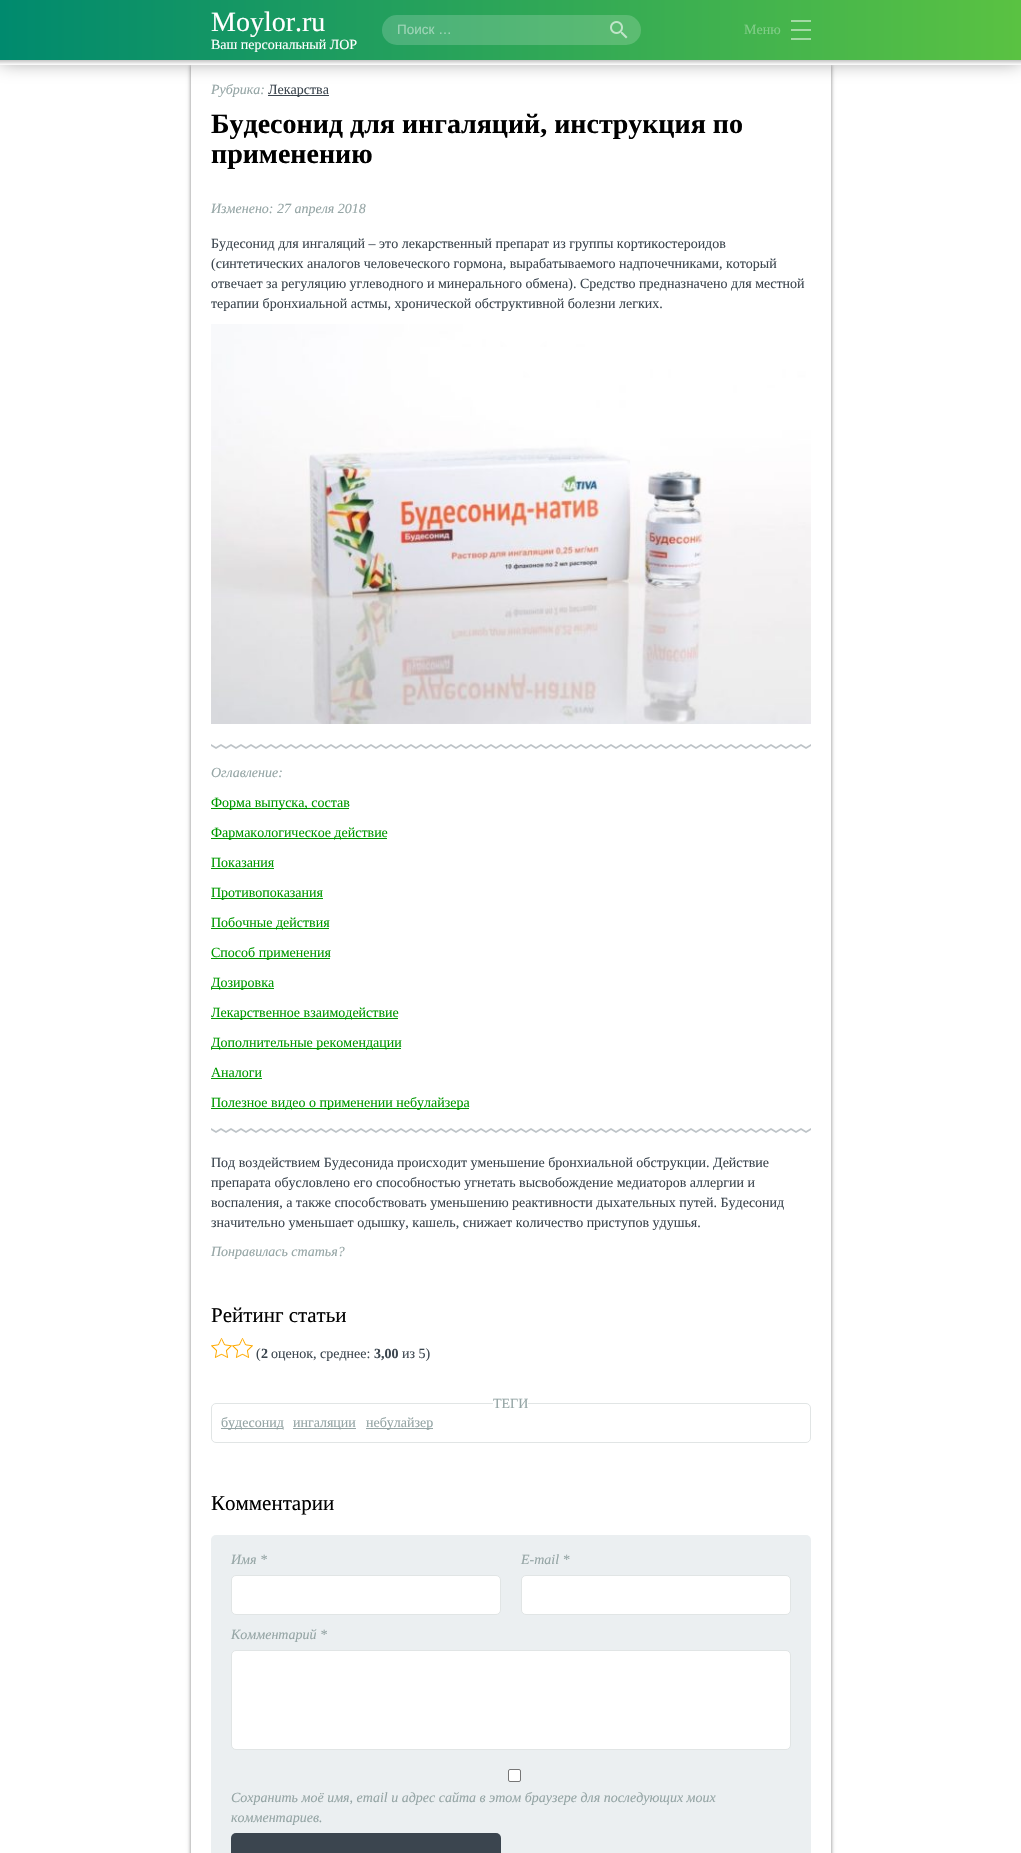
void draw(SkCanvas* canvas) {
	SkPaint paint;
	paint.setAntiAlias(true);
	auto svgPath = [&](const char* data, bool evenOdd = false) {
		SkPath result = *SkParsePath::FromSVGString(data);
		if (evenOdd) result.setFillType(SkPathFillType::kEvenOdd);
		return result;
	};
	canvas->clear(0xffffffff);
	paint.setColor(0x80000000);
	paint.setMaskFilter(SkMaskFilter::MakeBlur(kNormal_SkBlurStyle, 10));
	canvas->drawRect(SkRect::MakeXYWH(0, 0, 1021, 60), paint);
	paint.setMaskFilter(nullptr);
	canvas->save();
	canvas->clipPath(svgPath("M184 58H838V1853H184ZM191 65H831V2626H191Z", true), true);
	paint.setMaskFilter(SkMaskFilter::MakeBlur(kNormal_SkBlurStyle, 2));
	canvas->drawRect(SkRect::MakeXYWH(191, 65, 640, 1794), paint);
	paint.setMaskFilter(nullptr);
	canvas->restore();
	{
		const SkColor colors[] = {0xff008a6e, 0xff5ac242};
		const float stops[] = {0, 1};
		const SkPoint ends[] = {{0, 30}, {1021, 30}};
		paint.setShader(SkGradientShader::MakeLinear(ends, colors, stops, 2, SkTileMode::kClamp));
		paint.setAlpha(255);
	}
	canvas->drawRect(SkRect::MakeXYWH(0, 0, 1021, 60), paint);
	SkFont f1(fontMgr->matchFamilyStyle("Liberation Serif", SkFontStyle::Normal()), 28);
	f1.setSubpixel(true);
	paint.setShader(nullptr);
	paint.setColor(0xffffffff);
	canvas->drawString("Moylor.ru", 211, 31, f1, paint);
	SkFont f2(fontMgr->matchFamilyStyle("Liberation Serif", SkFontStyle::Normal()), 14);
	f2.setSubpixel(true);
	canvas->drawString("Ваш персональный ЛОР", 211, 49, f2, paint);
	paint.setColor(0x2effffff);
	canvas->drawRoundRect(SkRect::MakeXYWH(382, 15, 259, 30), 15, 15, paint);
	SkFont f3(fontMgr->matchFamilyStyle("Liberation Sans", SkFontStyle::Normal()), 13.5);
	f3.setSubpixel(true);
	paint.setColor(0xff9ed5b7);
	canvas->drawString("Поиск …", 397, 34, f3, paint);
	canvas->drawImageRect(SkImages::DeferredFromEncodedData(SkData::MakeFromFileName("img1.png")), SkRect::MakeXYWH(610, 21, 18, 18), SkSamplingOptions());
	paint.setColor(0xff81cd88);
	canvas->drawString("Меню", 744, 34, f2, paint);
	paint.setColor(0xffa3daa5);
	canvas->drawRect(SkRect::MakeXYWH(791, 20, 20, 2), paint);
	canvas->drawRect(SkRect::MakeXYWH(791, 29, 20, 2), paint);
	canvas->drawRect(SkRect::MakeXYWH(791, 38, 20, 2), paint);
	{
		const SkColor colors[] = {0xffc5c5c5, 0xffffffff};
		const float stops[] = {0, 1};
		const SkPoint ends[] = {{511, 60}, {511, 65}};
		paint.setShader(SkGradientShader::MakeLinear(ends, colors, stops, 2, SkTileMode::kClamp));
		paint.setAlpha(255);
	}
	canvas->drawRect(SkRect::MakeXYWH(0, 60, 1021, 5), paint);
	SkFont f4(fontMgr->matchFamilyStyle("Liberation Serif", SkFontStyle::Italic()), 14);
	f4.setSubpixel(true);
	paint.setShader(nullptr);
	paint.setColor(0xff95a5a5);
	canvas->drawString("Рубрика:", 211, 94, f4, paint);
	paint.setColor(0xff3c464f);
	canvas->drawRect(SkRect::MakeXYWH(268, 95, 61, 1), paint);
	canvas->drawString("Лекарства", 268, 94, f2, paint);
	SkFont f5(fontMgr->matchFamilyStyle("Liberation Serif", SkFontStyle::Bold()), 28);
	f5.setSubpixel(true);
	paint.setColor(0xff000000);
	canvas->drawString("Будесонид для ингаляций, инструкция по", 211, 133, f5, paint);
	canvas->drawString("применению", 211, 163, f5, paint);
	paint.setColor(0xff95a5a5);
	canvas->drawString("Изменено: 27 апреля 2018", 211, 213, f4, paint);
	paint.setColor(0xff3c464f);
	canvas->drawString("Будесонид для ингаляций – это лекарственный препарат из группы кортикостероидов", 211, 248, f2, paint);
	canvas->drawString("(синтетических аналогов человеческого гормона, вырабатываемого надпочечниками, который", 211, 268, f2, paint);
	canvas->drawString("отвечает за регуляцию углеводного и минерального обмена). Средство предназначено для местной", 211, 288, f2, paint);
	canvas->drawString("терапии бронхиальной астмы, хронической обструктивной болезни легких.", 211, 308, f2, paint);
	canvas->drawImageRect(SkImages::DeferredFromEncodedData(SkData::MakeFromFileName("img2.png")), SkRect::MakeXYWH(211, 324, 600, 400), SkSamplingOptions());
	canvas->drawImageRect(SkImages::DeferredFromEncodedData(SkData::MakeFromFileName("img3.png")), SkRect::MakeXYWH(211, 744, 600, 5), SkSamplingOptions());
	paint.setColor(0xff95a5a5);
	canvas->drawString("Оглавление:", 211, 777, f4, paint);
	paint.setColor(0xff009900);
	canvas->drawRect(SkRect::MakeXYWH(211, 808, 138, 1), paint);
	canvas->drawString("Форма выпуска, состав", 211, 807, f2, paint);
	canvas->drawRect(SkRect::MakeXYWH(211, 838, 176, 1), paint);
	canvas->drawString("Фармакологическое действие", 211, 837, f2, paint);
	canvas->drawString("Показания", 211, 867, f2, paint);
	canvas->drawRect(SkRect::MakeXYWH(211, 868, 63, 1), paint);
	canvas->drawRect(SkRect::MakeXYWH(211, 898, 112, 1), paint);
	canvas->drawString("Противопоказания", 211, 897, f2, paint);
	canvas->drawRect(SkRect::MakeXYWH(211, 928, 118, 1), paint);
	canvas->drawString("Побочные действия", 211, 927, f2, paint);
	canvas->drawRect(SkRect::MakeXYWH(211, 958, 119, 1), paint);
	canvas->drawString("Способ применения", 211, 957, f2, paint);
	canvas->drawRect(SkRect::MakeXYWH(211, 988, 63, 1), paint);
	canvas->drawString("Дозировка", 211, 987, f2, paint);
	canvas->drawRect(SkRect::MakeXYWH(211, 1018, 187, 1), paint);
	canvas->drawString("Лекарственное взаимодействие", 211, 1017, f2, paint);
	canvas->drawRect(SkRect::MakeXYWH(211, 1048, 190, 1), paint);
	canvas->drawString("Дополнительные рекомендации", 211, 1047, f2, paint);
	canvas->drawString("Аналоги", 211, 1077, f2, paint);
	canvas->drawRect(SkRect::MakeXYWH(211, 1078, 51, 1), paint);
	canvas->drawRect(SkRect::MakeXYWH(211, 1108, 258, 1), paint);
	canvas->drawString("Полезное видео о применении небулайзера", 211, 1107, f2, paint);
	canvas->drawImageRect(SkImages::DeferredFromEncodedData(SkData::MakeFromFileName("img3.png")), SkRect::MakeXYWH(211, 1128, 600, 5), SkSamplingOptions());
	paint.setColor(0xff3c464f);
	canvas->drawString("Под воздействием Будесонида происходит уменьшение бронхиальной обструкции. Действие", 211, 1167, f2, paint);
	canvas->drawString("препарата обусловлено его способностью угнетать высвобождение медиаторов аллергии и", 211, 1187, f2, paint);
	canvas->drawString("воспаления, а также способствовать уменьшению реактивности дыхательных путей. Будесонид", 211, 1207, f2, paint);
	canvas->drawString("значительно уменьшает одышку, кашель, снижает количество приступов удушья.", 211, 1227, f2, paint);
	paint.setColor(0xff95a5a5);
	canvas->drawString("Понравилась статья?", 211, 1256, f4, paint);
	SkFont f6(fontMgr->matchFamilyStyle("Liberation Serif", SkFontStyle::Normal()), 21);
	f6.setSubpixel(true);
	paint.setColor(0xff000000);
	canvas->drawString("Рейтинг статьи", 211, 1322, f6, paint);
	canvas->drawImageRect(SkImages::DeferredFromEncodedData(SkData::MakeFromFileName("img4.png")), SkRect::MakeXYWH(211, 1338, 21, 20), SkSamplingOptions());
	canvas->drawImageRect(SkImages::DeferredFromEncodedData(SkData::MakeFromFileName("img4.png")), SkRect::MakeXYWH(232, 1338, 21, 20), SkSamplingOptions());
	paint.setColor(0xff3c464f);
	canvas->drawString("(", 256, 1358, f2, paint);
	SkFont f7(fontMgr->matchFamilyStyle("Liberation Serif", SkFontStyle::Bold()), 14);
	f7.setSubpixel(true);
	canvas->drawString("2", 261, 1358, f7, paint);
	canvas->drawString("оценок, среднее:", 271, 1358, f2, paint);
	canvas->drawString("3,00", 374, 1358, f7, paint);
	canvas->drawString("из 5)", 402, 1358, f2, paint);
	paint.setStroke(true);
	paint.setStrokeWidth(1);
	paint.setColor(0xffe1e5e5);
	canvas->drawRoundRect(SkRect::MakeXYWH(211.5, 1403.5, 599, 39), 4.5, 4.5, paint);
	paint.setStroke(false);
	paint.setColor(0xffffffff);
	canvas->drawRect(SkRect::MakeXYWH(493, 1403, 35, 1), paint);
	paint.setColor(0xff95a5a5);
	canvas->drawString("ТЕГИ", 493, 1408, f2, paint);
	canvas->drawRect(SkRect::MakeXYWH(221, 1428, 62, 1), paint);
	canvas->drawString("будесонид", 221, 1427, f2, paint);
	canvas->drawRect(SkRect::MakeXYWH(293, 1428, 63, 1), paint);
	canvas->drawString("ингаляции", 293, 1427, f2, paint);
	canvas->drawRect(SkRect::MakeXYWH(366, 1428, 67, 1), paint);
	canvas->drawString("небулайзер", 366, 1427, f2, paint);
	paint.setColor(0xff000000);
	canvas->drawString("Комментарии", 211, 1510, f6, paint);
	paint.setColor(0xffebeff1);
	canvas->drawRoundRect(SkRect::MakeXYWH(211, 1535, 600, 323), 5, 5, paint);
	paint.setColor(0xff95a5a5);
	canvas->drawString("Имя *", 231, 1564, f4, paint);
	paint.setColor(0xffffffff);
	canvas->drawRoundRect(SkRect::MakeXYWH(231.5, 1575.5, 269, 39), 4.5, 4.5, paint);
	paint.setStroke(true);
	paint.setColor(0xffe1e5e5);
	canvas->drawRoundRect(SkRect::MakeXYWH(231.5, 1575.5, 269, 39), 4.5, 4.5, paint);
	paint.setStroke(false);
	paint.setColor(0xff95a5a5);
	canvas->drawString("E-mail *", 521, 1564, f4, paint);
	paint.setColor(0xffffffff);
	canvas->drawRoundRect(SkRect::MakeXYWH(521.5, 1575.5, 269, 39), 4.5, 4.5, paint);
	paint.setStroke(true);
	paint.setColor(0xffe1e5e5);
	canvas->drawRoundRect(SkRect::MakeXYWH(521.5, 1575.5, 269, 39), 4.5, 4.5, paint);
	paint.setStroke(false);
	paint.setColor(0xff95a5a5);
	canvas->drawString("Комментарий *", 231, 1639, f4, paint);
	paint.setColor(0xffffffff);
	canvas->drawRoundRect(SkRect::MakeXYWH(231.5, 1650.5, 559, 99), 4.5, 4.5, paint);
	paint.setStroke(true);
	paint.setColor(0xffe1e5e5);
	canvas->drawRoundRect(SkRect::MakeXYWH(231.5, 1650.5, 559, 99), 4.5, 4.5, paint);
	paint.setStroke(false);
	paint.setColor(0xffffffff);
	canvas->drawRoundRect(SkRect::MakeXYWH(508.5, 1769.5, 12, 12), 1.5, 1.5, paint);
	paint.setStroke(true);
	paint.setColor(0xff767676);
	canvas->drawRoundRect(SkRect::MakeXYWH(508.5, 1769.5, 12, 12), 1.5, 1.5, paint);
	paint.setStroke(false);
	paint.setColor(0xff95a5a5);
	canvas->drawString("Сохранить моё имя, email и адрес сайта в этом браузере для последующих моих", 231, 1802, f4, paint);
	canvas->drawString("комментариев.", 231, 1822, f4, paint);
	paint.setColor(0xff3b454f);
	canvas->drawRoundRect(SkRect::MakeXYWH(231, 1833, 270, 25), 5, 5, paint);
}
